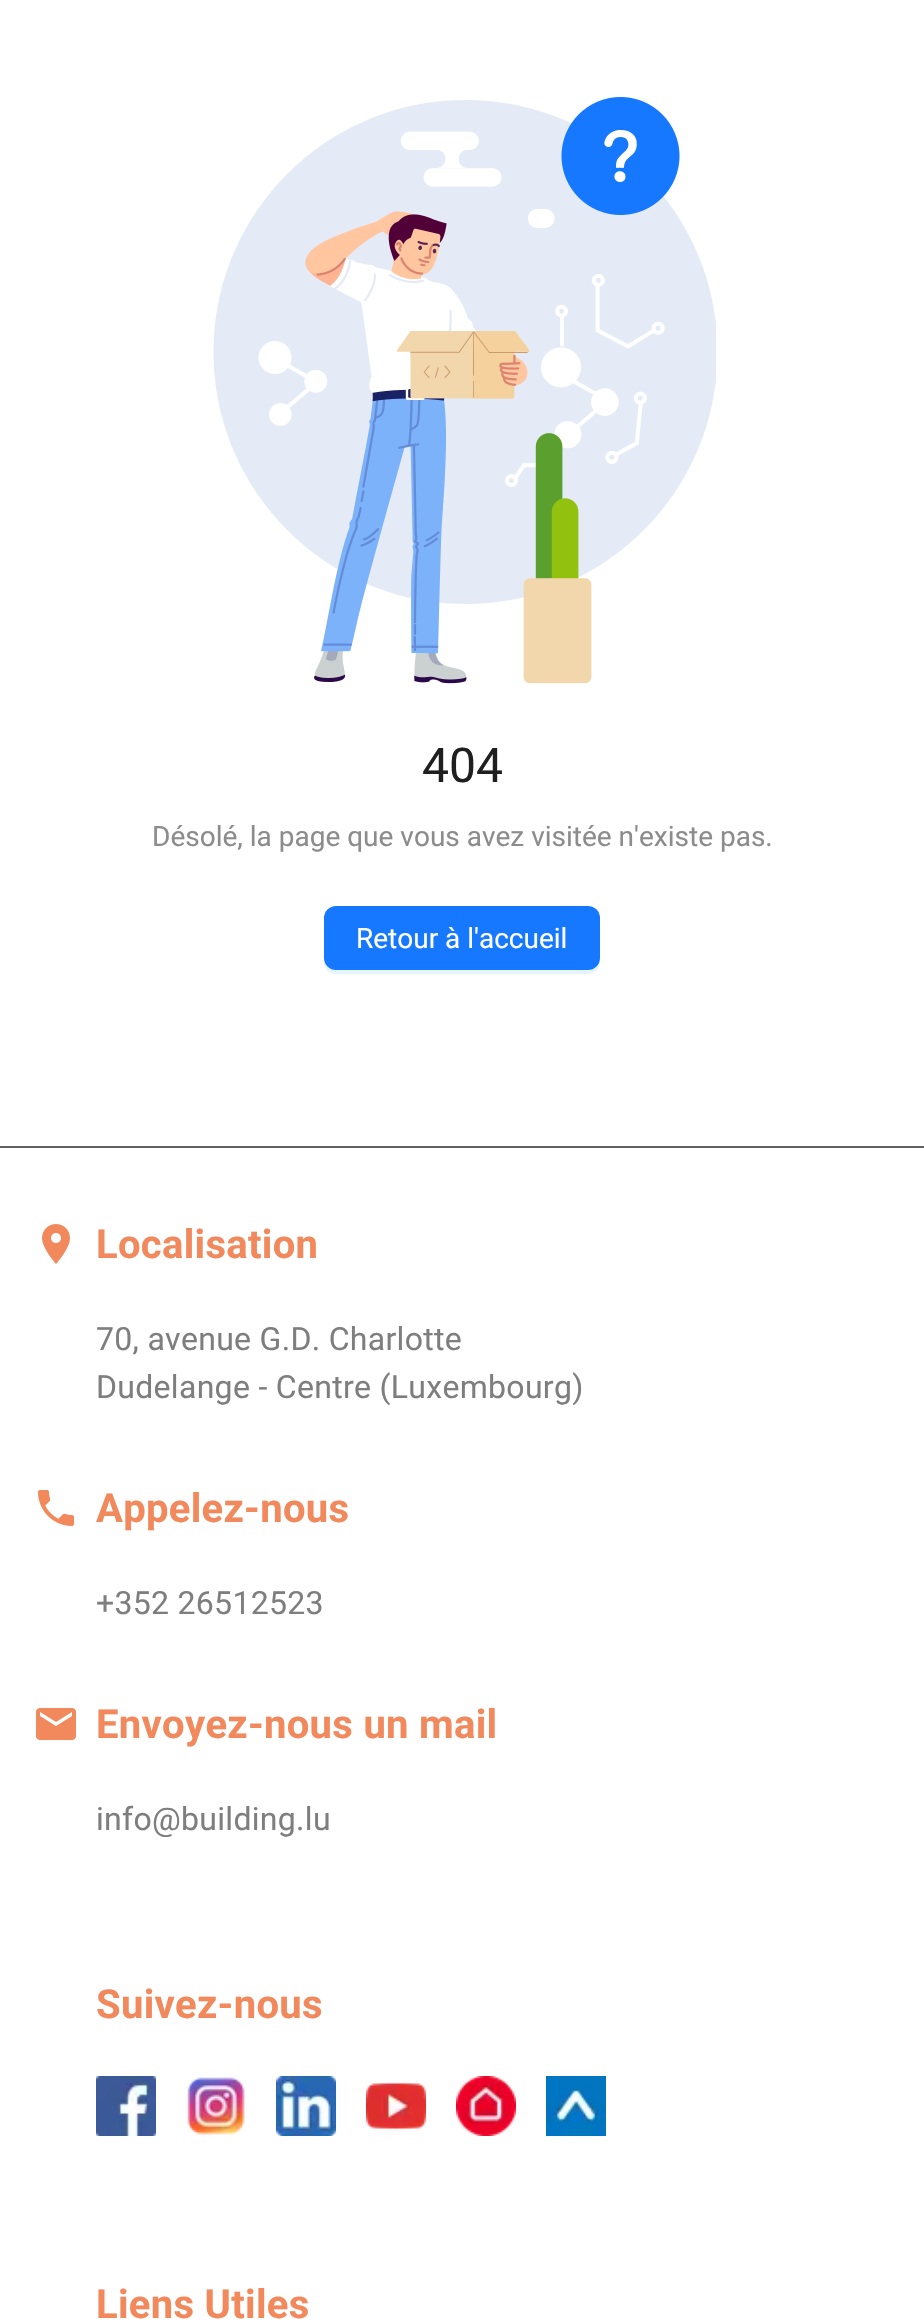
void draw(SkCanvas* canvas) {
	SkPaint paint;
	paint.setAntiAlias(true);
	auto spacedText = [&](const char* s, float x, float y, const SkFont& font, const SkPaint& ink, float letter, float word) {
		std::vector<SkGlyphID> glyphs(font.countText(s, strlen(s), SkTextEncoding::kUTF8));
		std::vector<float> xs(glyphs.size());
		font.textToGlyphs(s, strlen(s), SkTextEncoding::kUTF8, glyphs);
		font.getXPos(glyphs, xs, x);
		float extra = 0;
		for (size_t i = 0; i < glyphs.size(); i++) {
			xs[i] += extra;
			extra += letter + word * (glyphs[i] == font.unicharToGlyph(' '));
		}
		canvas->drawTextBlob(SkTextBlob::MakeFromPosHGlyphs(glyphs, xs, y, font), 0, 0, ink);
	};
	auto svgPath = [&](const char* data, bool evenOdd = false) {
		SkPath result = *SkParsePath::FromSVGString(data);
		if (evenOdd) result.setFillType(SkPathFillType::kEvenOdd);
		return result;
	};
	canvas->clear(0xffffffff);
	canvas->drawImageRect(SkImages::DeferredFromEncodedData(SkData::MakeFromFileName("img1.png")), SkRect::MakeXYWH(213, 97, 503, 587), SkSamplingOptions());
	SkFont f1(fontMgr->matchFamilyStyle("Roboto", SkFontStyle::Normal()), 48);
	f1.setSubpixel(true);
	paint.setColor(0xff1f1f1f);
	canvas->drawString("404", 422, 782, f1, paint);
	SkFont f2(fontMgr->matchFamilyStyle("Roboto", SkFontStyle::Normal()), 28);
	f2.setSubpixel(true);
	paint.setColor(0xff8c8c8c);
	canvas->drawString("Désolé, la page que vous avez visitée n'existe pas.", 152, 846, f2, paint);
	paint.setColor(0xffe6f4ff);
	canvas->drawPath(svgPath("M324 958V962C324 969 329 974 336 974H588C595 974 600 969 600 962V958C600 965 595 970 588 970H336C329 970 324 965 324 958Z"), paint);
	paint.setColor(0xff1677ff);
	canvas->drawRoundRect(SkRect::MakeXYWH(324, 906, 276, 64), 12, 12, paint);
	paint.setColor(0xffffffff);
	canvas->drawString("Retour à l'accueil", 356, 948, f2, paint);
	paint.setColor(0xff626262);
	canvas->drawRect(SkRect::MakeXYWH(0, 1146, 924, 2), paint);
	canvas->drawImageRect(SkImages::DeferredFromEncodedData(SkData::MakeFromFileName("img2.png")), SkRect::MakeXYWH(42, 1224, 28, 40), SkSamplingOptions());
	SkFont f3(fontMgr->matchFamilyStyle("Roboto", SkFontStyle::Bold()), 40);
	f3.setSubpixel(true);
	paint.setColor(0xfff1895c);
	spacedText("Localisation", 96, 1258, f3, paint, 0.3, 0);
	SkFont f4(fontMgr->matchFamilyStyle("Roboto", SkFontStyle::Normal()), 32);
	f4.setSubpixel(true);
	paint.setColor(0xff7e7e7e);
	spacedText("70, avenue G.D. Charlotte", 96, 1350, f4, paint, 0.3, 0);
	spacedText("Dudelange - Centre (Luxembourg)", 96, 1398, f4, paint, 0.3, 0);
	canvas->drawImageRect(SkImages::DeferredFromEncodedData(SkData::MakeFromFileName("img3.png")), SkRect::MakeXYWH(38, 1490, 36, 36), SkSamplingOptions());
	paint.setColor(0xfff1895c);
	spacedText("Appelez-nous", 96, 1522, f3, paint, 0.3, 0);
	paint.setColor(0xff7e7e7e);
	spacedText("+352 26512523", 96, 1614, f4, paint, 0.3, 0);
	canvas->drawImageRect(SkImages::DeferredFromEncodedData(SkData::MakeFromFileName("img4.png")), SkRect::MakeXYWH(36, 1708, 40, 32), SkSamplingOptions());
	paint.setColor(0xfff1895c);
	spacedText("Envoyez-nous un mail", 96, 1738, f3, paint, 0.3, 0);
	paint.setColor(0xff7e7e7e);
	spacedText("info@building.lu", 96, 1830, f4, paint, 0.3, 0);
	paint.setColor(0xfff1895c);
	spacedText("Suivez-nous", 96, 2018, f3, paint, 0.3, 0);
	canvas->drawImageRect(SkImages::DeferredFromEncodedData(SkData::MakeFromFileName("img5.png")), SkRect::MakeXYWH(96, 2076, 60, 60), SkSamplingOptions());
	canvas->drawImageRect(SkImages::DeferredFromEncodedData(SkData::MakeFromFileName("img6.png")), SkRect::MakeXYWH(187, 2077, 58, 58), SkSamplingOptions());
	canvas->drawImageRect(SkImages::DeferredFromEncodedData(SkData::MakeFromFileName("img7.png")), SkRect::MakeXYWH(276, 2076, 60, 60), SkSamplingOptions());
	canvas->drawImageRect(SkImages::DeferredFromEncodedData(SkData::MakeFromFileName("img8.png")), SkRect::MakeXYWH(366, 2082, 60, 49), SkSamplingOptions());
	canvas->drawImageRect(SkImages::DeferredFromEncodedData(SkData::MakeFromFileName("img9.png")), SkRect::MakeXYWH(456, 2076, 60, 60), SkSamplingOptions());
	canvas->drawImageRect(SkImages::DeferredFromEncodedData(SkData::MakeFromFileName("img10.png")), SkRect::MakeXYWH(546, 2076, 60, 60), SkSamplingOptions());
	spacedText("Liens Utiles", 96, 2318, f3, paint, 0.3, 0);
}
